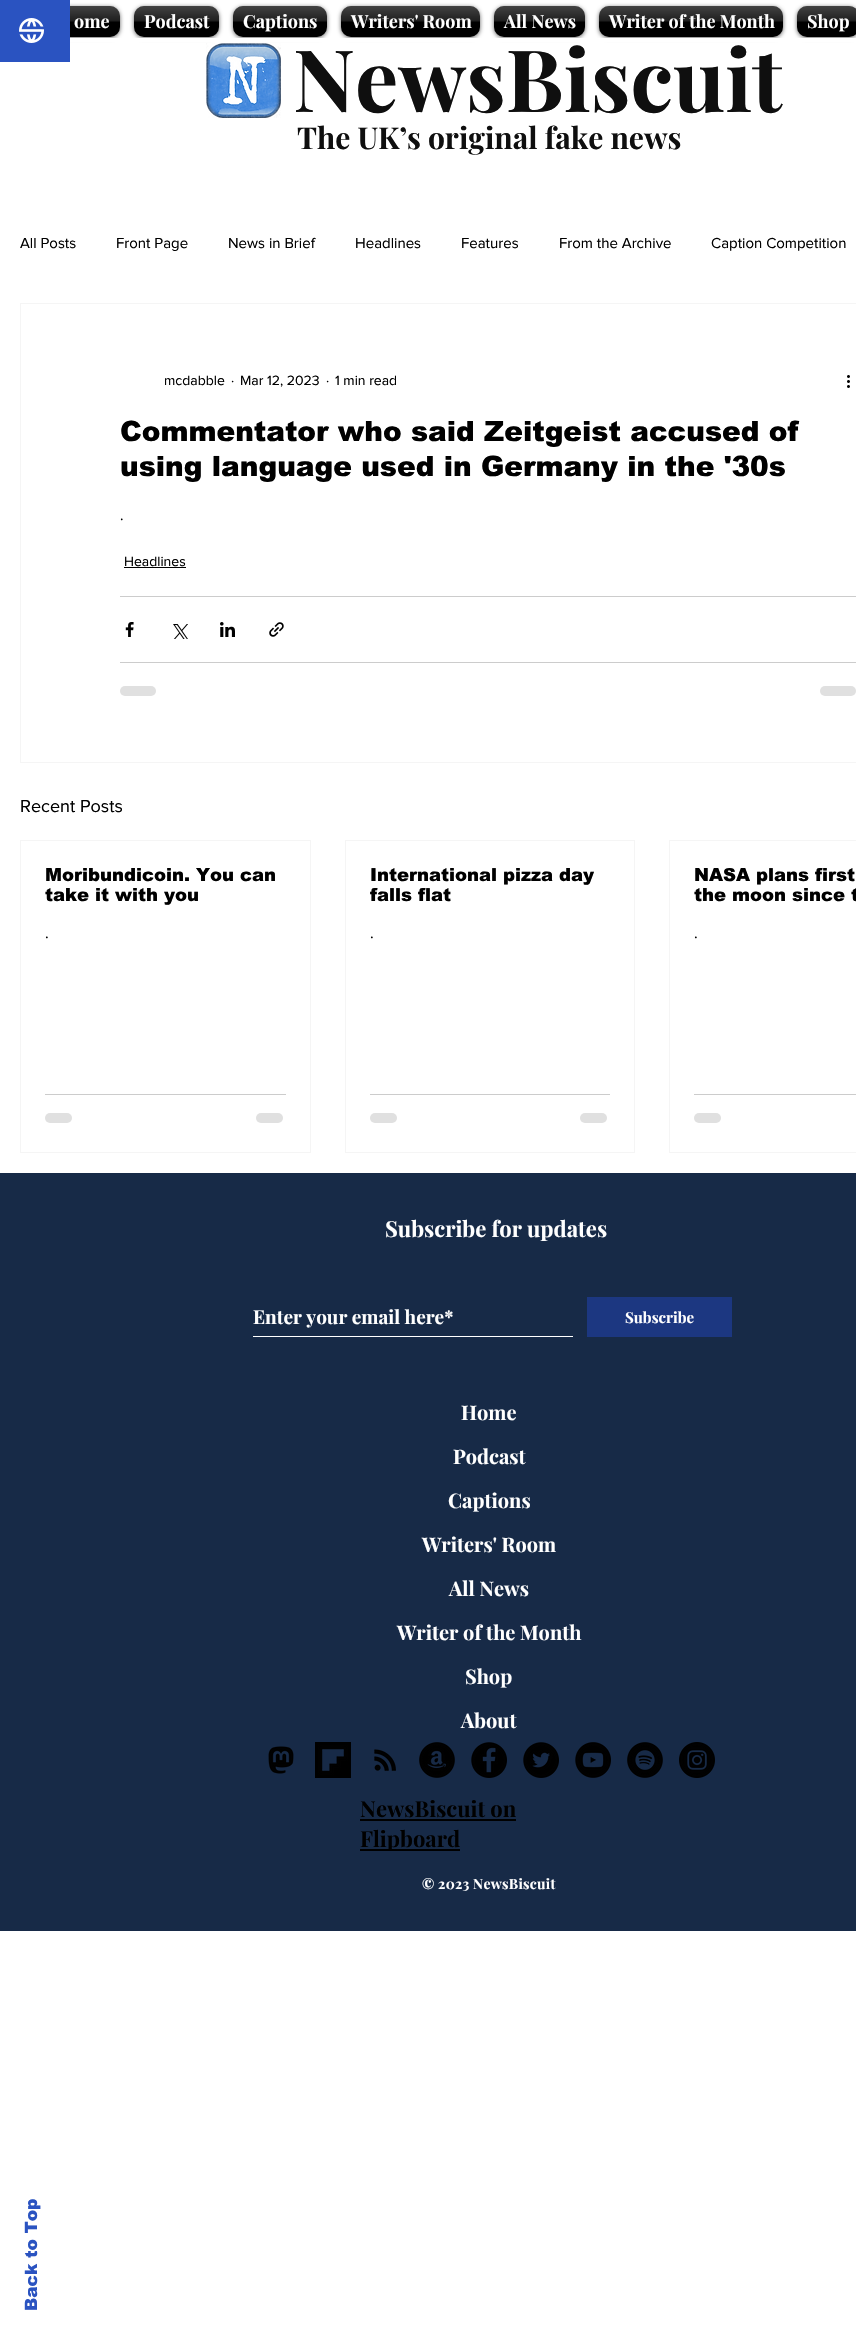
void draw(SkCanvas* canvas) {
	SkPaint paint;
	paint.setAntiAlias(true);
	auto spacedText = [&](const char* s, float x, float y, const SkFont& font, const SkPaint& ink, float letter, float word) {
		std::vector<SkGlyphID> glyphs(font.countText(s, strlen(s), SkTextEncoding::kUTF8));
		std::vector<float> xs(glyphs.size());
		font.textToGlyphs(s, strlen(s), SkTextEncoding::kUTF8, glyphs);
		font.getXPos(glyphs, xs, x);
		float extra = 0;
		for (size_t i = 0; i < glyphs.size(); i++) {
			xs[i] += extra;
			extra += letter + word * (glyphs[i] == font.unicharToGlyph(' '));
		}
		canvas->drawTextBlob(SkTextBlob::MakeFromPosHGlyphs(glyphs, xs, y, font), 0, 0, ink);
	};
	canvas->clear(0xffffffff);
	paint.setColor(0x99000000);
	paint.setMaskFilter(SkMaskFilter::MakeBlur(kNormal_SkBlurStyle, 2));
	canvas->drawRoundRect(SkRect::MakeXYWH(50, 7, 70, 31), 10, 10, paint);
	paint.setMaskFilter(nullptr);
	paint.setColor(0xff000000);
	canvas->drawRoundRect(SkRect::MakeXYWH(50, 6, 70, 31), 10, 10, paint);
	paint.setColor(0x99000000);
	paint.setMaskFilter(SkMaskFilter::MakeBlur(kNormal_SkBlurStyle, 2));
	canvas->drawRoundRect(SkRect::MakeXYWH(134, 7, 85, 31), 10, 10, paint);
	paint.setMaskFilter(nullptr);
	paint.setMaskFilter(SkMaskFilter::MakeBlur(kNormal_SkBlurStyle, 2));
	canvas->drawRoundRect(SkRect::MakeXYWH(233, 7, 94, 31), 10, 10, paint);
	paint.setMaskFilter(nullptr);
	paint.setMaskFilter(SkMaskFilter::MakeBlur(kNormal_SkBlurStyle, 2));
	canvas->drawRoundRect(SkRect::MakeXYWH(341, 7, 139, 31), 10, 10, paint);
	paint.setMaskFilter(nullptr);
	paint.setMaskFilter(SkMaskFilter::MakeBlur(kNormal_SkBlurStyle, 2));
	canvas->drawRoundRect(SkRect::MakeXYWH(494, 7, 91, 31), 10, 10, paint);
	paint.setMaskFilter(nullptr);
	paint.setMaskFilter(SkMaskFilter::MakeBlur(kNormal_SkBlurStyle, 2));
	canvas->drawRoundRect(SkRect::MakeXYWH(599, 7, 184, 31), 10, 10, paint);
	paint.setMaskFilter(nullptr);
	paint.setMaskFilter(SkMaskFilter::MakeBlur(kNormal_SkBlurStyle, 2));
	canvas->drawRoundRect(SkRect::MakeXYWH(797, 7, 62, 31), 10, 10, paint);
	paint.setMaskFilter(nullptr);
	paint.setColor(0xffffffff);
	canvas->drawRect(SkRect::MakeXYWH(51, 38, 805, 4), paint);
	paint.setColor(0xff2a53c1);
	canvas->drawRect(SkRect::MakeXYWH(0, 0, 70, 62), paint);
	canvas->drawImageRect(SkImages::DeferredFromEncodedData(SkData::MakeFromFileName("img1.png")), SkRect::MakeXYWH(19, 18, 25, 25), SkSamplingOptions());
	canvas->drawImageRect(SkImages::DeferredFromEncodedData(SkData::MakeFromFileName("img2.png")), SkRect::MakeXYWH(70, 6, 50, 16), SkSamplingOptions());
	SkFont f1(fontMgr->matchFamilyStyle("Playfair Display", SkFontStyle::Bold()), 18);
	f1.setSubpixel(true);
	paint.setColor(0xffffffff);
	canvas->drawString("ome", 74, 28, f1, paint);
	paint.setColor(0xff000000);
	canvas->drawRoundRect(SkRect::MakeXYWH(134, 6, 85, 31), 10, 10, paint);
	canvas->drawImageRect(SkImages::DeferredFromEncodedData(SkData::MakeFromFileName("img3.png")), SkRect::MakeXYWH(134, 6, 85, 16), SkSamplingOptions());
	paint.setColor(0xffffffff);
	canvas->drawString("Podcast", 144, 28, f1, paint);
	paint.setColor(0xff000000);
	canvas->drawRoundRect(SkRect::MakeXYWH(233, 6, 94, 31), 10, 10, paint);
	canvas->drawImageRect(SkImages::DeferredFromEncodedData(SkData::MakeFromFileName("img4.png")), SkRect::MakeXYWH(233, 6, 94, 16), SkSamplingOptions());
	paint.setColor(0xffffffff);
	canvas->drawString("Captions", 243, 28, f1, paint);
	paint.setColor(0xff000000);
	canvas->drawRoundRect(SkRect::MakeXYWH(341, 6, 139, 31), 10, 10, paint);
	canvas->drawImageRect(SkImages::DeferredFromEncodedData(SkData::MakeFromFileName("img5.png")), SkRect::MakeXYWH(341, 6, 139, 16), SkSamplingOptions());
	paint.setColor(0xffffffff);
	canvas->drawString("Writers' Room", 351, 28, f1, paint);
	paint.setColor(0xff000000);
	canvas->drawRoundRect(SkRect::MakeXYWH(494, 6, 91, 31), 10, 10, paint);
	canvas->drawImageRect(SkImages::DeferredFromEncodedData(SkData::MakeFromFileName("img6.png")), SkRect::MakeXYWH(494, 6, 91, 16), SkSamplingOptions());
	paint.setColor(0xffffffff);
	canvas->drawString("All News", 504, 28, f1, paint);
	paint.setColor(0xff000000);
	canvas->drawRoundRect(SkRect::MakeXYWH(599, 6, 184, 31), 10, 10, paint);
	canvas->drawImageRect(SkImages::DeferredFromEncodedData(SkData::MakeFromFileName("img7.png")), SkRect::MakeXYWH(599, 6, 184, 16), SkSamplingOptions());
	paint.setColor(0xffffffff);
	canvas->drawString("Writer of the Month", 609, 28, f1, paint);
	paint.setColor(0xff000000);
	canvas->drawRoundRect(SkRect::MakeXYWH(797, 6, 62, 31), 10, 10, paint);
	canvas->drawImageRect(SkImages::DeferredFromEncodedData(SkData::MakeFromFileName("img8.png")), SkRect::MakeXYWH(797, 6, 59, 16), SkSamplingOptions());
	paint.setColor(0xffffffff);
	canvas->drawString("Shop", 807, 28, f1, paint);
	canvas->drawImageRect(SkImages::DeferredFromEncodedData(SkData::MakeFromFileName("img9.png")), SkRect::MakeXYWH(206, 43, 75, 75), SkSamplingOptions());
	SkFont f2(fontMgr->matchFamilyStyle("Playfair Display", SkFontStyle::Bold()), 86);
	f2.setSubpixel(true);
	paint.setColor(0xff0f0f0f);
	canvas->drawString("NewsBiscuit", 293, 112, f2, paint);
	SkFont f3(fontMgr->matchFamilyStyle("Playfair Display", SkFontStyle::Bold()), 30);
	f3.setSubpixel(true);
	canvas->drawString("The UK’s original fake news", 297, 149, f3, paint);
	SkFont f4(fontMgr->matchFamilyStyle("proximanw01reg", SkFontStyle::Normal()), 15);
	f4.setSubpixel(true);
	paint.setColor(0xff000000);
	canvas->drawString("All Posts", 20, 248, f4, paint);
	canvas->drawString("Front Page", 116, 248, f4, paint);
	canvas->drawString("News in Brief", 228, 248, f4, paint);
	canvas->drawString("Headlines", 355, 248, f4, paint);
	canvas->drawString("Features", 461, 248, f4, paint);
	canvas->drawString("From the Archive", 559, 248, f4, paint);
	canvas->drawString("Caption Competition", 711, 248, f4, paint);
	paint.setStroke(true);
	paint.setStrokeWidth(1);
	paint.setColor(0xfff5f5f5);
	canvas->drawRect(SkRect::MakeXYWH(20.5, 303.5, 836, 459), paint);
	SkFont f5(fontMgr->matchFamilyStyle("proximanw01reg", SkFontStyle::Normal()), 14);
	f5.setSubpixel(true);
	paint.setStroke(false);
	paint.setColor(0xff000000);
	canvas->drawString("mcdabble", 164, 385, f5, paint);
	canvas->drawString("·", 231, 385, f5, paint);
	canvas->drawString("Mar 12, 2023", 240, 385, f5, paint);
	canvas->drawString("·", 326, 385, f5, paint);
	canvas->drawString("1 min read", 335, 385, f5, paint);
	canvas->drawImageRect(SkImages::DeferredFromEncodedData(SkData::MakeFromFileName("img10.png")), SkRect::MakeXYWH(847, 375, 3, 13), SkSamplingOptions());
	SkFont f6(fontMgr->matchFamilyStyle("arial", SkFontStyle(900, SkFontStyle::kNormal_Width, SkFontStyle::kUpright_Slant)), 28);
	f6.setSubpixel(true);
	canvas->drawString("Commentator who said Zeitgeist accused of", 120, 441, f6, paint);
	canvas->drawString("using language used in Germany in the '30s", 120, 476, f6, paint);
	canvas->drawString(".", 120, 520, f4, paint);
	canvas->drawString("Headlines", 124, 566, f5, paint);
	canvas->drawRect(SkRect::MakeXYWH(124, 567, 62, 1), paint);
	paint.setColor(0xffcccccc);
	canvas->drawRect(SkRect::MakeXYWH(120, 596, 736, 1), paint);
	canvas->drawImageRect(SkImages::DeferredFromEncodedData(SkData::MakeFromFileName("img11.png")), SkRect::MakeXYWH(125, 622, 9, 15), SkSamplingOptions());
	canvas->drawImageRect(SkImages::DeferredFromEncodedData(SkData::MakeFromFileName("img12.png")), SkRect::MakeXYWH(173, 624, 15, 15), SkSamplingOptions());
	canvas->drawImageRect(SkImages::DeferredFromEncodedData(SkData::MakeFromFileName("img13.png")), SkRect::MakeXYWH(220, 622, 15, 15), SkSamplingOptions());
	canvas->drawImageRect(SkImages::DeferredFromEncodedData(SkData::MakeFromFileName("img14.png")), SkRect::MakeXYWH(269, 622, 15, 15), SkSamplingOptions());
	canvas->drawRect(SkRect::MakeXYWH(120, 662, 736, 1), paint);
	paint.setColor(0xffe0e0e0);
	canvas->drawRoundRect(SkRect::MakeXYWH(120, 686, 36, 10), 5, 5, paint);
	canvas->drawRoundRect(SkRect::MakeXYWH(820, 686, 36, 10), 5, 5, paint);
	SkFont f7(fontMgr->matchFamilyStyle("proximanw01reg", SkFontStyle::Normal()), 18);
	f7.setSubpixel(true);
	paint.setColor(0xff000000);
	canvas->drawString("Recent Posts", 20, 812, f7, paint);
	paint.setStroke(true);
	paint.setColor(0xfff5f5f5);
	canvas->drawRect(SkRect::MakeXYWH(20.5, 840.5, 290, 312), paint);
	SkFont f8(fontMgr->matchFamilyStyle("arial", SkFontStyle(900, SkFontStyle::kNormal_Width, SkFontStyle::kUpright_Slant)), 18);
	f8.setSubpixel(true);
	paint.setStroke(false);
	paint.setColor(0xff000000);
	canvas->drawString("Moribundicoin. You can", 45, 881, f8, paint);
	canvas->drawString("take it with you", 45, 901, f8, paint);
	SkFont f9(fontMgr->matchFamilyStyle("proximanw01reg", SkFontStyle::Normal()), 16);
	f9.setSubpixel(true);
	canvas->drawString(".", 45, 938, f9, paint);
	paint.setColor(0xffcccccc);
	canvas->drawRect(SkRect::MakeXYWH(45, 1094, 241, 1), paint);
	paint.setColor(0xffe0e0e0);
	canvas->drawRoundRect(SkRect::MakeXYWH(45, 1113, 27, 10), 5, 5, paint);
	canvas->drawRoundRect(SkRect::MakeXYWH(256, 1113, 27, 10), 5, 5, paint);
	paint.setStroke(true);
	paint.setColor(0xfff5f5f5);
	canvas->drawRect(SkRect::MakeXYWH(345.5, 840.5, 289, 312), paint);
	paint.setStroke(false);
	paint.setColor(0xff000000);
	canvas->drawString("International pizza day", 370, 881, f8, paint);
	canvas->save();
	canvas->clipRect(SkRect::MakeXYWH(370, 865, 240, 40));
	canvas->drawString("falls flat", 370, 901, f8, paint);
	canvas->restore();
	canvas->drawString(".", 370, 938, f9, paint);
	paint.setColor(0xffcccccc);
	canvas->drawRect(SkRect::MakeXYWH(370, 1094, 240, 1), paint);
	paint.setColor(0xffe0e0e0);
	canvas->drawRoundRect(SkRect::MakeXYWH(370, 1113, 27, 10), 5, 5, paint);
	canvas->drawRoundRect(SkRect::MakeXYWH(580, 1113, 27, 10), 5, 5, paint);
	paint.setStroke(true);
	paint.setColor(0xfff5f5f5);
	canvas->drawRect(SkRect::MakeXYWH(669.5, 840.5, 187, 312), paint);
	paint.setStroke(false);
	paint.setColor(0xff000000);
	canvas->drawString("NASA plans first", 694, 881, f8, paint);
	canvas->drawString("the moon since t", 694, 901, f8, paint);
	canvas->drawString(".", 694, 938, f9, paint);
	paint.setColor(0xffcccccc);
	canvas->drawRect(SkRect::MakeXYWH(694, 1094, 162, 1), paint);
	paint.setColor(0xffe0e0e0);
	canvas->drawRoundRect(SkRect::MakeXYWH(694, 1113, 27, 10), 5, 5, paint);
	paint.setColor(0xff172a47);
	canvas->drawRect(SkRect::MakeXYWH(0, 1173, 856, 758), paint);
	SkFont f10(fontMgr->matchFamilyStyle("Playfair Display", SkFontStyle::Bold()), 22);
	f10.setSubpixel(true);
	paint.setColor(0xffffffff);
	canvas->drawString("Subscribe for updates", 385, 1237, f10, paint);
	canvas->drawRect(SkRect::MakeXYWH(253, 1336, 320, 1), paint);
	SkFont f11(fontMgr->matchFamilyStyle("Playfair Display", SkFontStyle::Bold()), 19);
	f11.setSubpixel(true);
	canvas->drawString("Enter your email here*", 253, 1324, f11, paint);
	paint.setColor(0xff1c3781);
	canvas->drawRect(SkRect::MakeXYWH(587, 1297, 145, 40), paint);
	SkFont f12(fontMgr->matchFamilyStyle("Playfair Display", SkFontStyle::Bold()), 15);
	f12.setSubpixel(true);
	paint.setColor(0xffffffff);
	canvas->drawString("Subscribe", 625, 1323, f12, paint);
	SkFont f13(fontMgr->matchFamilyStyle("Playfair Display", SkFontStyle::Bold()), 20);
	f13.setSubpixel(true);
	canvas->drawString("Home", 461, 1420, f13, paint);
	canvas->drawString("Podcast", 453, 1464, f13, paint);
	canvas->drawString("Captions", 448, 1508, f13, paint);
	canvas->drawString("Writers' Room", 422, 1552, f13, paint);
	canvas->drawString("All News", 449, 1596, f13, paint);
	canvas->drawString("Writer of the Month", 397, 1640, f13, paint);
	canvas->drawString("Shop", 465, 1684, f13, paint);
	canvas->drawString("About", 461, 1728, f13, paint);
	canvas->drawImageRect(SkImages::DeferredFromEncodedData(SkData::MakeFromFileName("img15.png")), SkRect::MakeXYWH(268, 1746, 26, 28), SkSamplingOptions());
	canvas->drawImageRect(SkImages::DeferredFromEncodedData(SkData::MakeFromFileName("img16.png")), SkRect::MakeXYWH(315, 1742, 36, 36), SkSamplingOptions());
	canvas->drawImageRect(SkImages::DeferredFromEncodedData(SkData::MakeFromFileName("img17.png")), SkRect::MakeXYWH(374, 1749, 22, 22), SkSamplingOptions());
	canvas->drawImageRect(SkImages::DeferredFromEncodedData(SkData::MakeFromFileName("img18.png")), SkRect::MakeXYWH(419, 1742, 36, 36), SkSamplingOptions());
	canvas->drawImageRect(SkImages::DeferredFromEncodedData(SkData::MakeFromFileName("img19.png")), SkRect::MakeXYWH(471, 1742, 36, 36), SkSamplingOptions());
	canvas->drawImageRect(SkImages::DeferredFromEncodedData(SkData::MakeFromFileName("img20.png")), SkRect::MakeXYWH(523, 1742, 36, 36), SkSamplingOptions());
	canvas->drawImageRect(SkImages::DeferredFromEncodedData(SkData::MakeFromFileName("img21.png")), SkRect::MakeXYWH(575, 1742, 36, 36), SkSamplingOptions());
	canvas->drawImageRect(SkImages::DeferredFromEncodedData(SkData::MakeFromFileName("img22.png")), SkRect::MakeXYWH(627, 1742, 36, 36), SkSamplingOptions());
	canvas->drawImageRect(SkImages::DeferredFromEncodedData(SkData::MakeFromFileName("img23.png")), SkRect::MakeXYWH(679, 1742, 36, 36), SkSamplingOptions());
	paint.setColor(0xff000000);
	canvas->drawString("NewsBiscuit on", 360, 1817, f10, paint);
	canvas->drawRect(SkRect::MakeXYWH(360, 1819, 156, 2), paint);
	canvas->drawRect(SkRect::MakeXYWH(360, 1849, 100, 2), paint);
	canvas->drawString("Flipboard", 360, 1847, f10, paint);
	SkFont f14(fontMgr->matchFamilyStyle("Playfair Display", SkFontStyle::Bold()), 14);
	f14.setSubpixel(true);
	paint.setColor(0xffffffff);
	spacedText("© 2023 NewsBiscuit", 422, 1889, f14, paint, 0.25, 0);
	SkFont f15(fontMgr->matchFamilyStyle("arial", SkFontStyle(900, SkFontStyle::kNormal_Width, SkFontStyle::kUpright_Slant)), 17);
	f15.setSubpixel(true);
	paint.setColor(0xff2a53c1);
	canvas->save();
	canvas->rotate(-90, 37, 2311);
	canvas->drawString("Back to Top", 37, 2311, f15, paint);
	canvas->restore();
}
